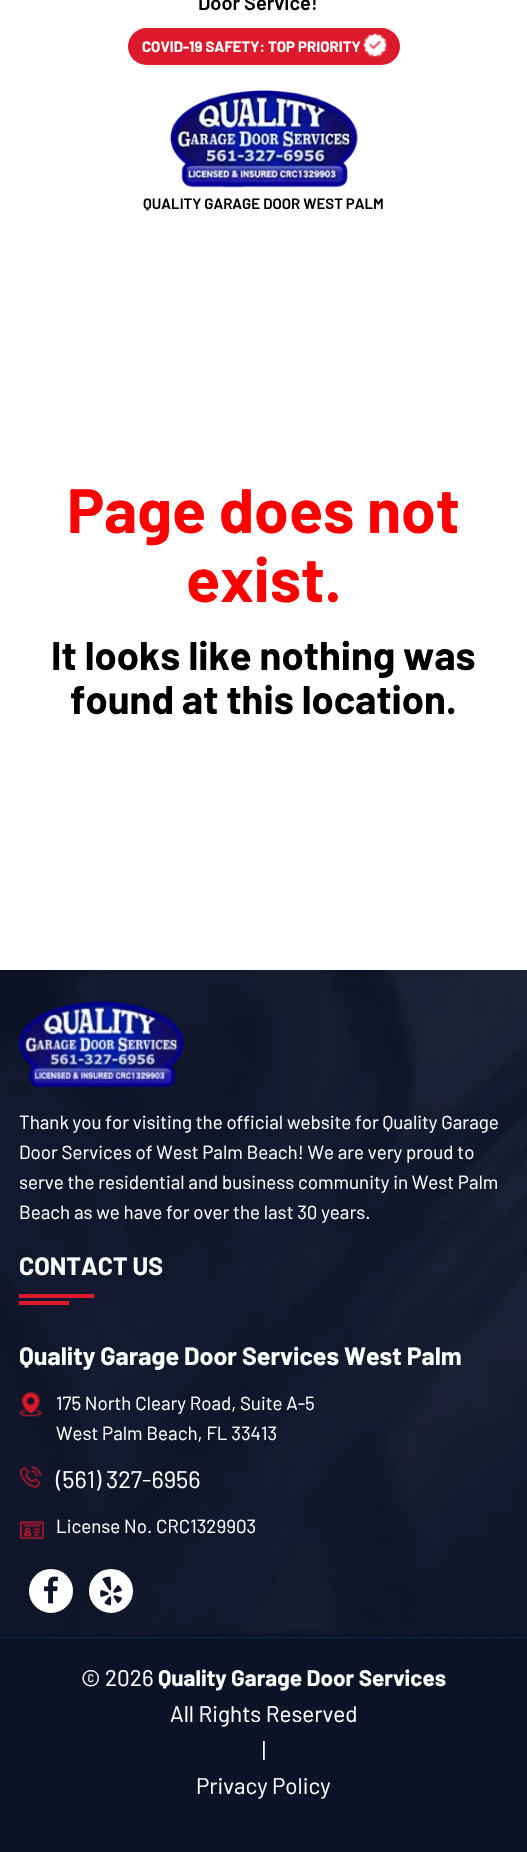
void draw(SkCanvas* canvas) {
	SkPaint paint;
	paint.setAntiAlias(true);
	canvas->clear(0xffffffff);
	SkFont f1(fontMgr->matchFamilyStyle("Barlow", SkFontStyle(600, SkFontStyle::kNormal_Width, SkFontStyle::kUpright_Slant)), 20);
	f1.setSubpixel(true);
	paint.setColor(0xff000000);
	canvas->drawString("Door Service!", 198, 10, f1, paint);
	paint.setColor(0xffdd192c);
	canvas->drawRoundRect(SkRect::MakeXYWH(128, 28, 272, 37), 18.5, 18.5, paint);
	SkFont f2(fontMgr->matchFamilyStyle("Barlow", SkFontStyle::Bold()), 15);
	f2.setSubpixel(true);
	paint.setColor(0xffffffff);
	canvas->drawString("COVID-19 SAFETY: TOP PRIORITY", 142, 52, f2, paint);
	canvas->drawImageRect(SkImages::DeferredFromEncodedData(SkData::MakeFromFileName("img1.png")), SkRect::MakeXYWH(363, 33, 24, 24), SkSamplingOptions());
	canvas->drawImageRect(SkImages::DeferredFromEncodedData(SkData::MakeFromFileName("img2.png")), SkRect::MakeXYWH(170, 90, 188, 98), SkSamplingOptions());
	SkFont f3(fontMgr->matchFamilyStyle("Barlow", SkFontStyle(600, SkFontStyle::kNormal_Width, SkFontStyle::kUpright_Slant)), 15);
	f3.setSubpixel(true);
	paint.setColor(0xff000000);
	canvas->drawString("QUALITY GARAGE DOOR WEST PALM", 143, 209, f3, paint);
	SkFont f4(fontMgr->matchFamilyStyle("Barlow", SkFontStyle::Bold()), 62.5);
	f4.setSubpixel(true);
	paint.setColor(0xffff0000);
	canvas->drawString("Page does not", 67, 533, f4, paint);
	canvas->drawString("exist.", 186, 602, f4, paint);
	SkFont f5(fontMgr->matchFamilyStyle("Barlow", SkFontStyle::Bold()), 40);
	f5.setSubpixel(true);
	paint.setColor(0xff000000);
	canvas->drawString("It looks like nothing was", 51, 670, f5, paint);
	canvas->drawString("found at this location.", 70, 714, f5, paint);
	paint.setColor(0xff033d75);
	canvas->drawRect(SkRect::MakeXYWH(0, 1637, 527, 1), paint);
	canvas->drawImageRect(SkImages::DeferredFromEncodedData(SkData::MakeFromFileName("img3.png")), SkRect::MakeXYWH(0, 970, 527, 668), SkSamplingOptions());
	canvas->drawImageRect(SkImages::DeferredFromEncodedData(SkData::MakeFromFileName("img4.png")), SkRect::MakeXYWH(18, 1001, 166, 87), SkSamplingOptions());
	SkFont f6(fontMgr->matchFamilyStyle("Barlow", SkFontStyle::Normal()), 18.75);
	f6.setSubpixel(true);
	paint.setColor(0xffffffff);
	canvas->drawString("Thank you for visiting the official website for Quality Garage", 19, 1129, f6, paint);
	canvas->drawString("Door Services of West Palm Beach! We are very proud to", 19, 1159, f6, paint);
	canvas->drawString("serve the residential and business community in West Palm", 19, 1189, f6, paint);
	canvas->drawString("Beach as we have for over the last 30 years.", 19, 1219, f6, paint);
	SkFont f7(fontMgr->matchFamilyStyle("Barlow", SkFontStyle::Bold()), 25);
	f7.setSubpixel(true);
	canvas->drawString("CONTACT US", 19, 1275, f7, paint);
	paint.setColor(0xffdd192c);
	canvas->drawRect(SkRect::MakeXYWH(19, 1294, 75, 4), paint);
	canvas->drawRect(SkRect::MakeXYWH(19, 1301, 50, 4), paint);
	paint.setColor(0xffffffff);
	canvas->drawString("Quality Garage Door Services West Palm", 19, 1365, f7, paint);
	canvas->drawImageRect(SkImages::DeferredFromEncodedData(SkData::MakeFromFileName("img5.png")), SkRect::MakeXYWH(19, 1392, 23, 25), SkSamplingOptions());
	canvas->drawString("175 North Cleary Road, Suite A-5", 56, 1410, f6, paint);
	canvas->drawString("West Palm Beach, FL 33413", 56, 1440, f6, paint);
	canvas->drawImageRect(SkImages::DeferredFromEncodedData(SkData::MakeFromFileName("img6.png")), SkRect::MakeXYWH(19, 1466, 23, 22), SkSamplingOptions());
	SkFont f8(fontMgr->matchFamilyStyle("Barlow", SkFontStyle::Normal()), 23.75);
	f8.setSubpixel(true);
	canvas->drawString("(561) 327-6956", 56, 1488, f8, paint);
	canvas->drawImageRect(SkImages::DeferredFromEncodedData(SkData::MakeFromFileName("img7.png")), SkRect::MakeXYWH(19, 1521, 25, 18), SkSamplingOptions());
	canvas->drawString("License No. CRC1329903", 56, 1533, f6, paint);
	canvas->drawCircle(51, 1591, 20.5, paint);
	paint.setStroke(true);
	paint.setStrokeWidth(3);
	canvas->drawCircle(51, 1591, 20.5, paint);
	canvas->drawImageRect(SkImages::DeferredFromEncodedData(SkData::MakeFromFileName("img8.png")), SkRect::MakeXYWH(44, 1576, 14, 28), SkSamplingOptions());
	paint.setStroke(false);
	canvas->drawCircle(111, 1591, 20.5, paint);
	paint.setStroke(true);
	canvas->drawCircle(111, 1591, 20.5, paint);
	canvas->drawImageRect(SkImages::DeferredFromEncodedData(SkData::MakeFromFileName("img9.png")), SkRect::MakeXYWH(100, 1576, 22, 30), SkSamplingOptions());
	paint.setStroke(false);
	paint.setColor(0xff0d1326);
	canvas->drawRect(SkRect::MakeXYWH(0, 1638, 527, 214), paint);
	SkFont f9(fontMgr->matchFamilyStyle("Barlow", SkFontStyle::Normal()), 22.5);
	f9.setSubpixel(true);
	paint.setColor(0xffffffff);
	canvas->drawString("© 2026", 81, 1686, f9, paint);
	SkFont f10(fontMgr->matchFamilyStyle("Barlow", SkFontStyle::Bold()), 22.5);
	f10.setSubpixel(true);
	canvas->drawString("Quality Garage Door Services", 158, 1686, f10, paint);
	canvas->drawString("All Rights Reserved", 170, 1722, f9, paint);
	canvas->drawString("|", 262, 1758, f9, paint);
	canvas->drawString("Privacy Policy", 196, 1794, f9, paint);
}
